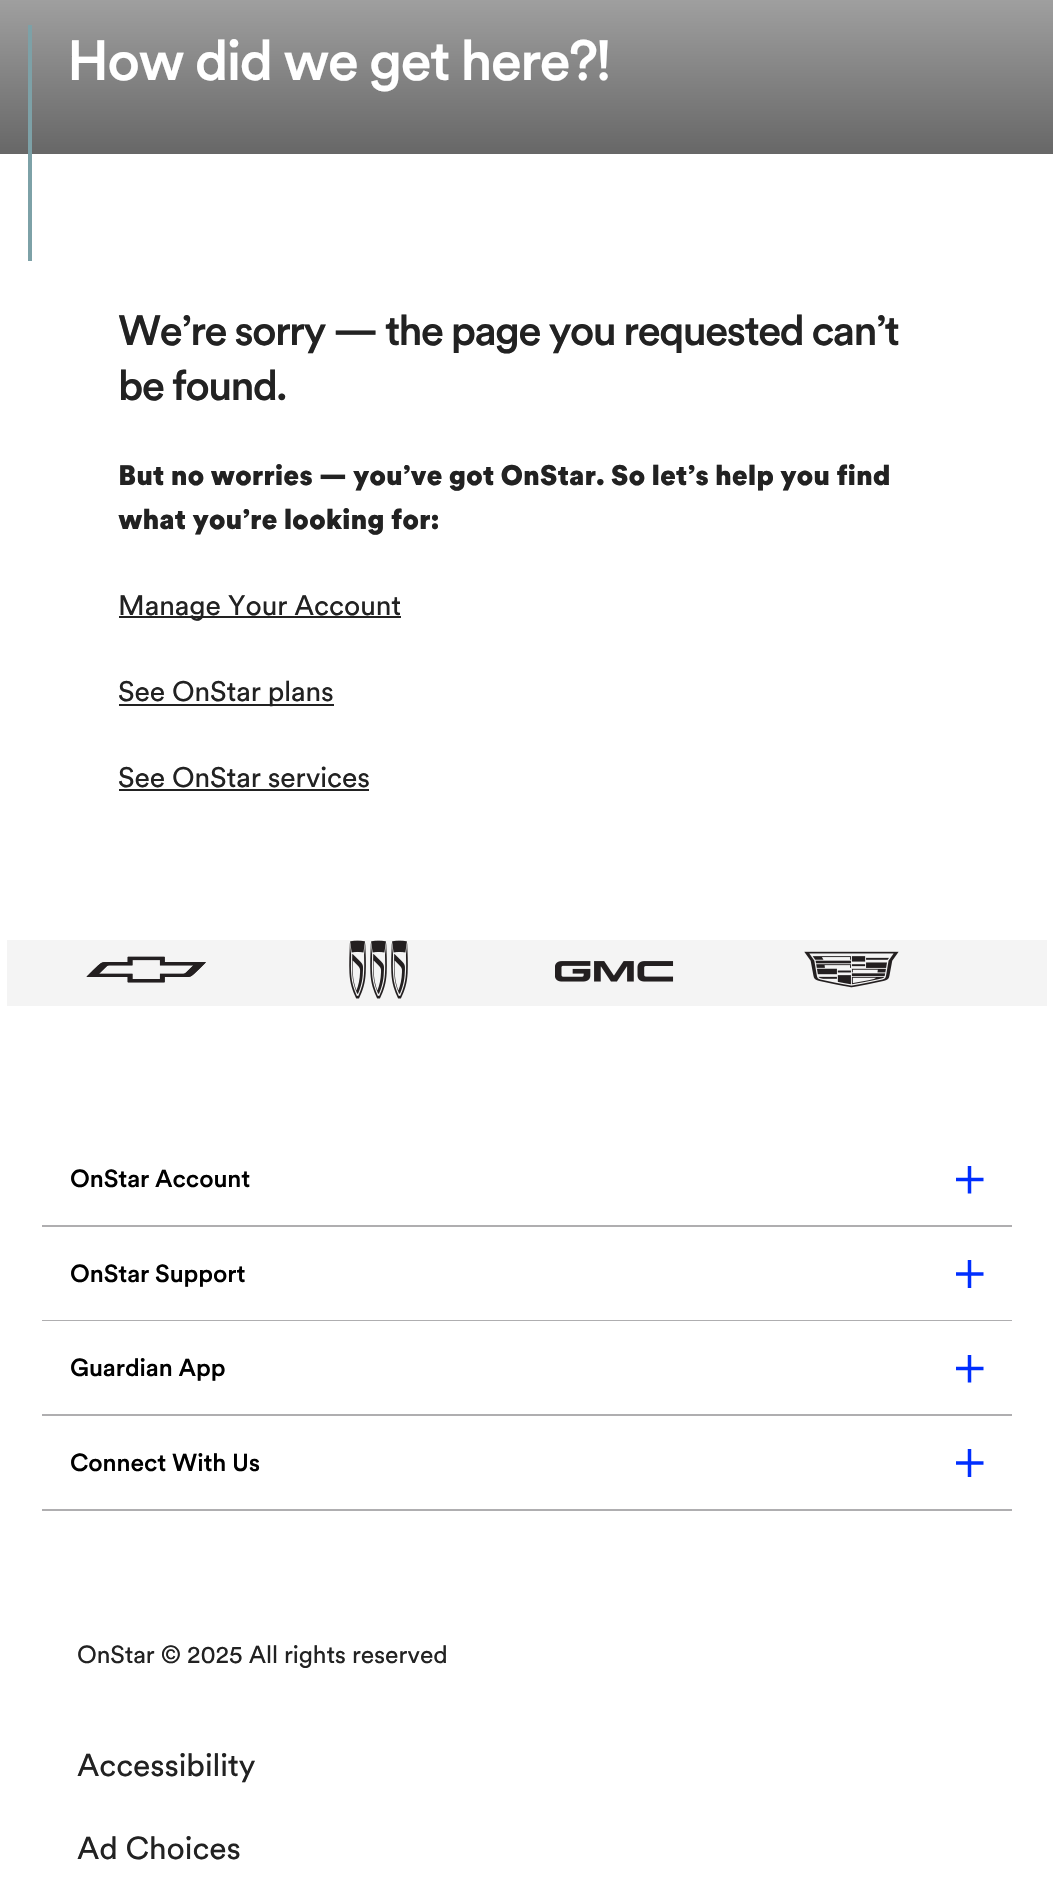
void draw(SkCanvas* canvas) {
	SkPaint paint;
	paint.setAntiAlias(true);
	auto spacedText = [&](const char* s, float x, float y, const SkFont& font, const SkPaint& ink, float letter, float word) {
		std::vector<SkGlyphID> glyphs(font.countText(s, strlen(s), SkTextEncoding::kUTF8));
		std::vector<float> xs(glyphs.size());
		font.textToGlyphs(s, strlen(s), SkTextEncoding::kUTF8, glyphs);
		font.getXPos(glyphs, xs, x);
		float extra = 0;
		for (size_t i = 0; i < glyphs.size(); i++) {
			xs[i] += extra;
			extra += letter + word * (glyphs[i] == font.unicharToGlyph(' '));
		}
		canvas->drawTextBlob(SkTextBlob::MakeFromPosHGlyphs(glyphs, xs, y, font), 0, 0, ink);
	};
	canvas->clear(0xffffffff);
	{
		const SkColor colors[] = {0xffffffff, 0xff676767};
		const float stops[] = {0, 1};
		const SkPoint ends[] = {{527, -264}, {527, 154}};
		paint.setShader(SkGradientShader::MakeLinear(ends, colors, stops, 2, SkTileMode::kClamp));
		paint.setAlpha(255);
	}
	canvas->drawRect(SkRect::MakeXYWH(0, 0, 1053, 154), paint);
	paint.setShader(nullptr);
	paint.setColor(0xff7da1a7);
	canvas->drawRect(SkRect::MakeXYWH(28, 25, 4, 129), paint);
	SkFont f1(fontMgr->matchFamilyStyle("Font", SkFontStyle(500, SkFontStyle::kNormal_Width, SkFontStyle::kUpright_Slant)), 56);
	f1.setSubpixel(true);
	paint.setColor(0xffffffff);
	spacedText("How did we get here?!", 67, 80, f1, paint, -1.75, 0);
	paint.setColor(0xff7da1a7);
	canvas->drawRect(SkRect::MakeXYWH(28, 154, 4, 107), paint);
	SkFont f2(fontMgr->matchFamilyStyle("Font", SkFontStyle(500, SkFontStyle::kNormal_Width, SkFontStyle::kUpright_Slant)), 42);
	f2.setSubpixel(true);
	paint.setColor(0xff222222);
	spacedText("We’re sorry — the page you requested can’t", 118, 345, f2, paint, -1.75, 0);
	spacedText("be found.", 118, 400, f2, paint, -1.75, 0);
	SkFont f3(fontMgr->matchFamilyStyle("Font", SkFontStyle(900, SkFontStyle::kNormal_Width, SkFontStyle::kUpright_Slant)), 28);
	f3.setSubpixel(true);
	spacedText("But no worries — you’ve got OnStar. So let’s help you find", 118, 485, f3, paint, -0.1, 0);
	spacedText("what you’re looking for:", 118, 529, f3, paint, -0.1, 0);
	canvas->drawRect(SkRect::MakeXYWH(119, 616, 282, 2), paint);
	SkFont f4(fontMgr->matchFamilyStyle("Font", SkFontStyle::Normal()), 28);
	f4.setSubpixel(true);
	spacedText("Manage Your Account", 118, 615, f4, paint, -0.1, 0);
	canvas->drawRect(SkRect::MakeXYWH(119, 704, 215, 2), paint);
	spacedText("See OnStar plans", 118, 701, f4, paint, -0.1, 0);
	spacedText("See OnStar services", 118, 787, f4, paint, -0.1, 0);
	canvas->drawRect(SkRect::MakeXYWH(119, 789, 250, 2), paint);
	paint.setColor(0xfff4f4f4);
	canvas->drawRect(SkRect::MakeXYWH(7, 940, 1040, 66), paint);
	canvas->drawImageRect(SkImages::DeferredFromEncodedData(SkData::MakeFromFileName("img1.png")), SkRect::MakeXYWH(86, 956, 120, 27), SkSamplingOptions());
	canvas->drawImageRect(SkImages::DeferredFromEncodedData(SkData::MakeFromFileName("img2.png")), SkRect::MakeXYWH(349, 940, 59, 59), SkSamplingOptions());
	canvas->drawImageRect(SkImages::DeferredFromEncodedData(SkData::MakeFromFileName("img3.png")), SkRect::MakeXYWH(555, 961, 119, 21), SkSamplingOptions());
	canvas->drawImageRect(SkImages::DeferredFromEncodedData(SkData::MakeFromFileName("img4.png")), SkRect::MakeXYWH(804, 951, 95, 37), SkSamplingOptions());
	paint.setColor(0xffafaeb0);
	canvas->drawRect(SkRect::MakeXYWH(42, 1225, 970, 2), paint);
	SkFont f5(fontMgr->matchFamilyStyle("Font", SkFontStyle(500, SkFontStyle::kNormal_Width, SkFontStyle::kUpright_Slant)), 24.5);
	f5.setSubpixel(true);
	paint.setColor(0xff000000);
	spacedText("OnStar Account", 70, 1187, f5, paint, -0.1, 0);
	canvas->drawImageRect(SkImages::DeferredFromEncodedData(SkData::MakeFromFileName("img5.png")), SkRect::MakeXYWH(956, 1166, 28, 28), SkSamplingOptions());
	paint.setColor(0xffafaeb0);
	canvas->drawRect(SkRect::MakeXYWH(42, 1320, 970, 1), paint);
	paint.setColor(0xff000000);
	spacedText("OnStar Support", 70, 1282, f5, paint, -0.1, 0);
	canvas->drawImageRect(SkImages::DeferredFromEncodedData(SkData::MakeFromFileName("img6.png")), SkRect::MakeXYWH(956, 1260, 28, 28), SkSamplingOptions());
	paint.setColor(0xffafaeb0);
	canvas->drawRect(SkRect::MakeXYWH(42, 1414, 970, 2), paint);
	paint.setColor(0xff000000);
	spacedText("Guardian App", 70, 1376, f5, paint, -0.1, 0);
	canvas->drawImageRect(SkImages::DeferredFromEncodedData(SkData::MakeFromFileName("img5.png")), SkRect::MakeXYWH(956, 1355, 28, 28), SkSamplingOptions());
	paint.setColor(0xffafaeb0);
	canvas->drawRect(SkRect::MakeXYWH(42, 1509, 970, 2), paint);
	paint.setColor(0xff000000);
	spacedText("Connect With Us", 70, 1471, f5, paint, -0.1, 0);
	canvas->drawImageRect(SkImages::DeferredFromEncodedData(SkData::MakeFromFileName("img6.png")), SkRect::MakeXYWH(956, 1449, 28, 28), SkSamplingOptions());
	SkFont f6(fontMgr->matchFamilyStyle("Font", SkFontStyle::Normal()), 24.5);
	f6.setSubpixel(true);
	paint.setColor(0xff222222);
	spacedText("OnStar © 2025 All rights reserved", 77, 1663, f6, paint, -0.1, 0);
	SkFont f7(fontMgr->matchFamilyStyle("Font", SkFontStyle::Normal()), 31.5);
	f7.setSubpixel(true);
	spacedText("Accessibility", 77, 1776, f7, paint, -0.1, 0);
	spacedText("Ad Choices", 77, 1859, f7, paint, -0.1, 0);
}
